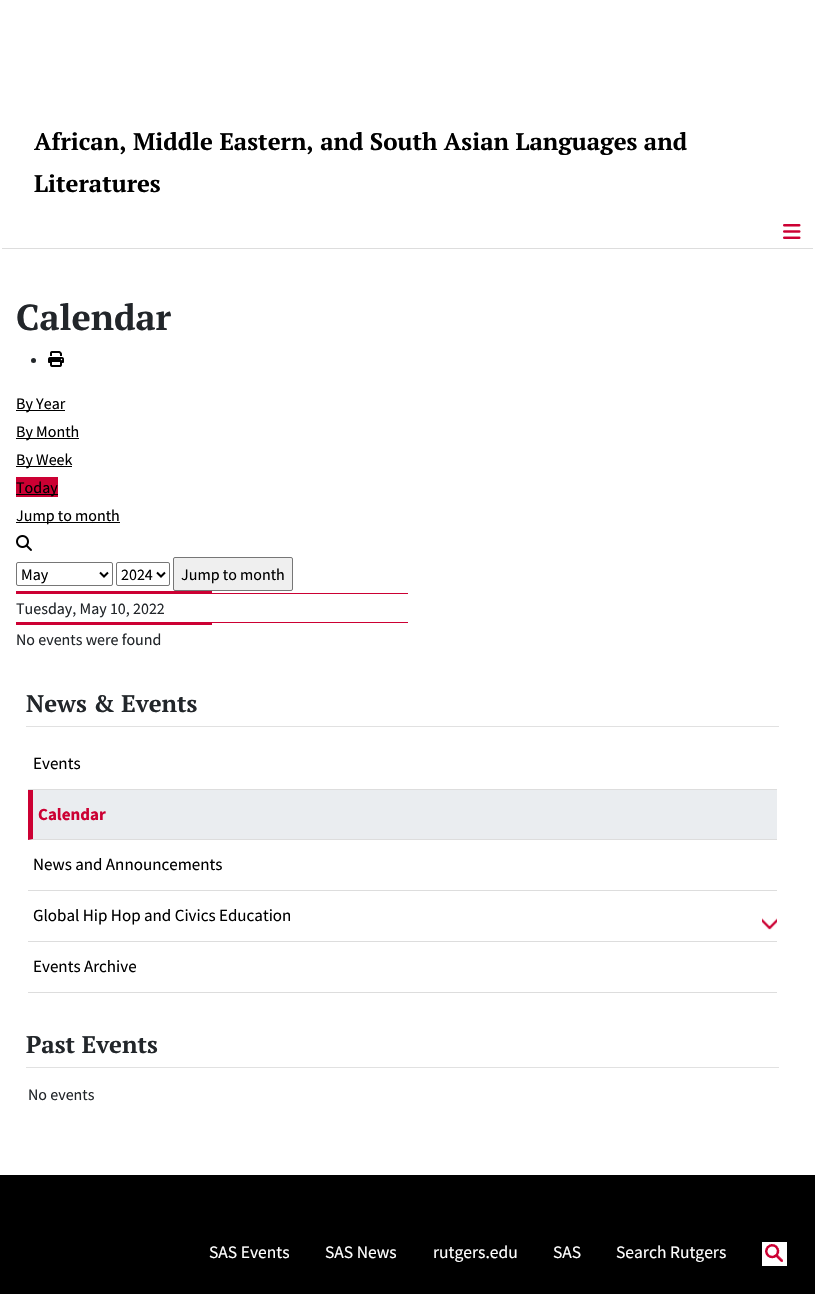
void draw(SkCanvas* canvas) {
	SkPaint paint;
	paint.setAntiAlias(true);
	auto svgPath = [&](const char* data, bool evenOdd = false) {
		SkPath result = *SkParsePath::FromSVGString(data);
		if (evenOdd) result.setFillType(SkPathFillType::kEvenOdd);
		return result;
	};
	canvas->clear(0xffffffff);
	SkFont f1(fontMgr->matchFamilyStyle("PT Serif", SkFontStyle::Bold()), 24);
	f1.setSubpixel(true);
	paint.setColor(0xff000000);
	canvas->drawString("African, Middle Eastern, and South Asian Languages and", 34, 150, f1, paint);
	canvas->drawString("Literatures", 34, 192, f1, paint);
	paint.setColor(0xffdddddd);
	canvas->drawRect(SkRect::MakeXYWH(2, 248, 811, 1), paint);
	canvas->drawImageRect(SkImages::DeferredFromEncodedData(SkData::MakeFromFileName("img1.png")), SkRect::MakeXYWH(783, 224, 18, 15), SkSamplingOptions());
	SkFont f2(fontMgr->matchFamilyStyle("PT Serif", SkFontStyle::Bold()), 36);
	f2.setSubpixel(true);
	paint.setColor(0xff22262a);
	canvas->drawString("Calendar", 16, 330, f2, paint);
	canvas->drawCircle(33.5, 360.5, 2.5, paint);
	canvas->drawImageRect(SkImages::DeferredFromEncodedData(SkData::MakeFromFileName("img2.png")), SkRect::MakeXYWH(48, 351, 16, 16), SkSamplingOptions());
	paint.setColor(0xff000000);
	canvas->drawRect(SkRect::MakeXYWH(16, 410, 49, 1), paint);
	SkFont f3(fontMgr->matchFamilyStyle("Source Sans Pro", SkFontStyle::Normal()), 16);
	f3.setSubpixel(true);
	canvas->drawString("By Year", 16, 409, f3, paint);
	canvas->drawRect(SkRect::MakeXYWH(16, 438, 63, 1), paint);
	canvas->drawString("By Month", 16, 437, f3, paint);
	canvas->drawRect(SkRect::MakeXYWH(16, 466, 56, 1), paint);
	canvas->drawString("By Week", 16, 465, f3, paint);
	paint.setColor(0xffcc0033);
	canvas->drawRect(SkRect::MakeXYWH(16, 477, 42, 20), paint);
	paint.setColor(0xff000000);
	canvas->drawRect(SkRect::MakeXYWH(16, 494, 42, 1), paint);
	canvas->drawString("Today", 16, 493, f3, paint);
	canvas->drawRect(SkRect::MakeXYWH(16, 522, 104, 1), paint);
	canvas->drawString("Jump to month", 16, 521, f3, paint);
	canvas->drawImageRect(SkImages::DeferredFromEncodedData(SkData::MakeFromFileName("img3.png")), SkRect::MakeXYWH(16, 535, 16, 16), SkSamplingOptions());
	paint.setStroke(true);
	paint.setStrokeWidth(1);
	paint.setColor(0xff767676);
	canvas->drawRoundRect(SkRect::MakeXYWH(16.5, 562.5, 96, 23), 1.5, 1.5, paint);
	paint.setStrokeWidth(2);
	paint.setColor(0xff000000);
	canvas->drawPath(svgPath("M100 572.5L104 576.5L108 572.5"), paint);
	paint.setStroke(false);
	canvas->drawString("May", 21, 580, f3, paint);
	paint.setStroke(true);
	paint.setStrokeWidth(1);
	paint.setColor(0xff767676);
	canvas->drawRoundRect(SkRect::MakeXYWH(116.5, 562.5, 53, 23), 1.5, 1.5, paint);
	paint.setStrokeWidth(2);
	paint.setColor(0xff000000);
	canvas->drawPath(svgPath("M157 572.5L161 576.5L165 572.5"), paint);
	paint.setStroke(false);
	canvas->drawString("2024", 121, 580, f3, paint);
	paint.setColor(0xffefefef);
	canvas->drawRoundRect(SkRect::MakeXYWH(173.5, 557.5, 119, 33), 1.5, 1.5, paint);
	paint.setStroke(true);
	paint.setStrokeWidth(1);
	paint.setColor(0xff767676);
	canvas->drawRoundRect(SkRect::MakeXYWH(173.5, 557.5, 119, 33), 1.5, 1.5, paint);
	paint.setStroke(false);
	paint.setColor(0xff000000);
	canvas->drawString("Jump to month", 181, 580, f3, paint);
	paint.setColor(0xffcc0033);
	canvas->drawRect(SkRect::MakeXYWH(16, 591, 196, 2), paint);
	canvas->drawRect(SkRect::MakeXYWH(16, 593, 392, 1), paint);
	canvas->drawRect(SkRect::MakeXYWH(16, 622, 392, 1), paint);
	paint.setColor(0xff22262a);
	canvas->drawString("Tuesday, May 10, 2022", 16, 614, f3, paint);
	paint.setColor(0xffcc0033);
	canvas->drawRect(SkRect::MakeXYWH(16, 623, 196, 2), paint);
	paint.setColor(0xff22262a);
	canvas->drawString("No events were found", 16, 645, f3, paint);
	paint.setColor(0xffe1e1e1);
	canvas->drawRect(SkRect::MakeXYWH(26, 726, 753, 1), paint);
	paint.setColor(0xff22262a);
	canvas->drawString("News & Events", 26, 712, f1, paint);
	paint.setColor(0xffdddddd);
	canvas->drawRect(SkRect::MakeXYWH(28, 789, 749, 1), paint);
	SkFont f4(fontMgr->matchFamilyStyle("Source Sans Pro", SkFontStyle::Normal()), 17);
	f4.setSubpixel(true);
	paint.setColor(0xff000000);
	canvas->drawString("Events", 33, 769, f4, paint);
	paint.setColor(0xffeaedf0);
	canvas->drawRect(SkRect::MakeXYWH(28, 790, 749, 50), paint);
	paint.setColor(0xffdddddd);
	canvas->drawPath(svgPath("M777 840H28L33 839H777Z"), paint);
	paint.setColor(0xffcc0033);
	canvas->drawPath(svgPath("M28 840V790H33V839Z"), paint);
	SkFont f5(fontMgr->matchFamilyStyle("Source Sans Pro", SkFontStyle::Bold()), 17);
	f5.setSubpixel(true);
	canvas->drawString("Calendar", 38, 820, f5, paint);
	paint.setColor(0xffdddddd);
	canvas->drawRect(SkRect::MakeXYWH(28, 890, 749, 1), paint);
	paint.setColor(0xff000000);
	canvas->drawString("News and Announcements", 33, 870, f4, paint);
	paint.setColor(0xffdddddd);
	canvas->drawRect(SkRect::MakeXYWH(28, 941, 749, 1), paint);
	paint.setColor(0xff000000);
	canvas->drawString("Global Hip Hop and Civics Education", 33, 921, f4, paint);
	canvas->drawImageRect(SkImages::DeferredFromEncodedData(SkData::MakeFromFileName("img4.png")), SkRect::MakeXYWH(762, 918, 15, 12), SkSamplingOptions());
	paint.setColor(0xffdddddd);
	canvas->drawRect(SkRect::MakeXYWH(28, 992, 749, 1), paint);
	paint.setColor(0xff000000);
	canvas->drawString("Events Archive", 33, 972, f4, paint);
	paint.setColor(0xffe1e1e1);
	canvas->drawRect(SkRect::MakeXYWH(26, 1067, 753, 1), paint);
	paint.setColor(0xff22262a);
	canvas->drawString("Past Events", 26, 1053, f1, paint);
	canvas->drawString("No events", 28, 1100, f3, paint);
	paint.setColor(0xff000000);
	canvas->drawRect(SkRect::MakeXYWH(0, 1175, 815, 119), paint);
	SkFont f6(fontMgr->matchFamilyStyle("Source Sans Pro", SkFontStyle::Normal()), 17.5);
	f6.setSubpixel(true);
	paint.setColor(0xffffffff);
	canvas->drawString("SAS Events", 209, 1258, f6, paint);
	canvas->drawString("SAS News", 325, 1258, f6, paint);
	canvas->drawString("rutgers.edu", 433, 1258, f6, paint);
	canvas->drawString("SAS", 553, 1258, f6, paint);
	canvas->drawString("Search Rutgers", 616, 1258, f6, paint);
	canvas->drawImageRect(SkImages::DeferredFromEncodedData(SkData::MakeFromFileName("img5.png")), SkRect::MakeXYWH(762, 1242, 25, 24), SkSamplingOptions());
}
